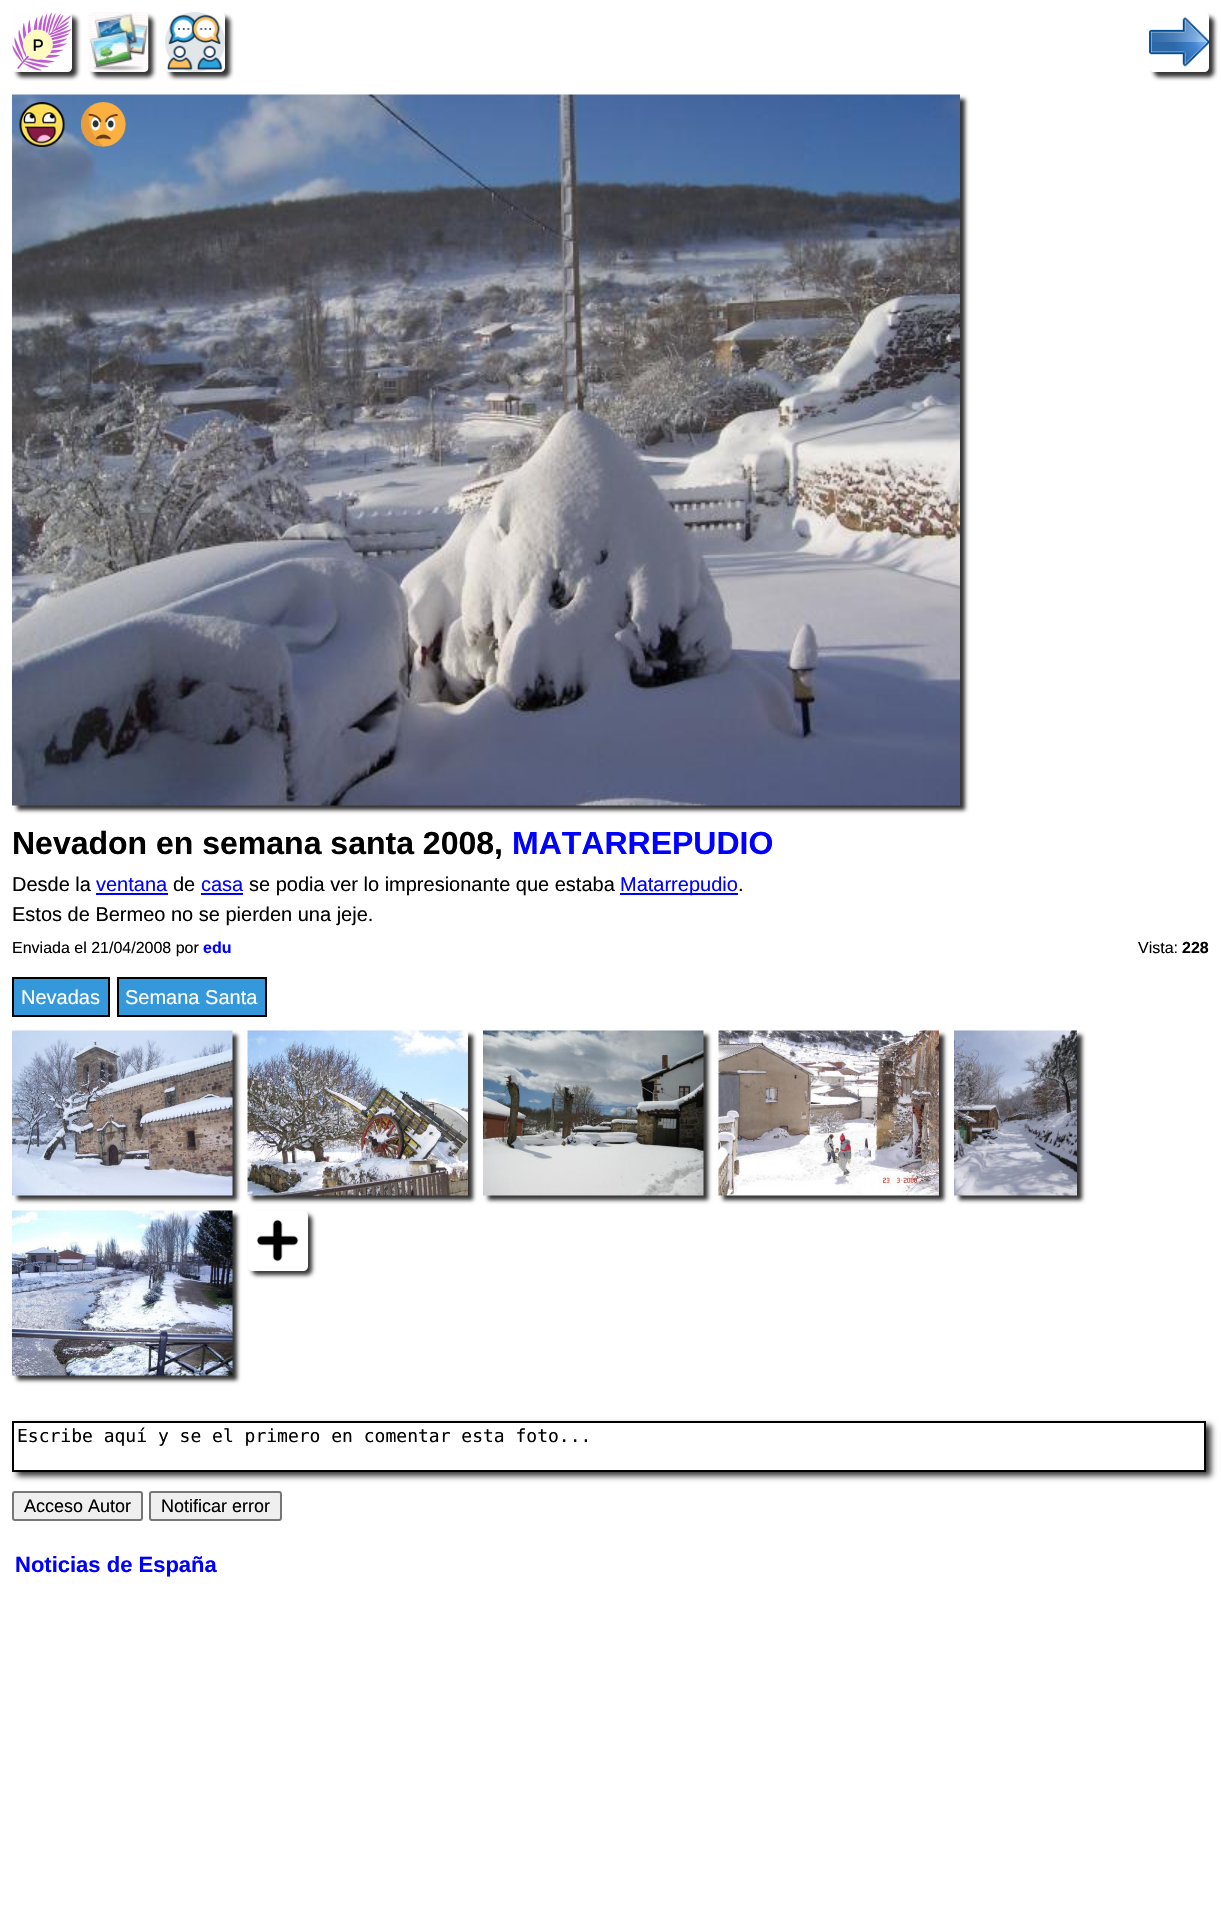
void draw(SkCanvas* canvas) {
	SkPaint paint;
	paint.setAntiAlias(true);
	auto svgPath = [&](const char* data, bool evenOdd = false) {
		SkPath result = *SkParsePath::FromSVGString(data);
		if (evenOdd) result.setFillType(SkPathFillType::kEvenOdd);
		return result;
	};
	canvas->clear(0xffffffff);
	paint.setColor(0xff333333);
	paint.setMaskFilter(SkMaskFilter::MakeBlur(kNormal_SkBlurStyle, 2));
	canvas->drawRoundRect(SkRect::MakeXYWH(17, 17, 60, 60), 5, 5, paint);
	paint.setMaskFilter(nullptr);
	paint.setMaskFilter(SkMaskFilter::MakeBlur(kNormal_SkBlurStyle, 2));
	canvas->drawRoundRect(SkRect::MakeXYWH(93, 17, 60, 60), 5, 5, paint);
	paint.setMaskFilter(nullptr);
	canvas->save();
	canvas->clipPath(svgPath("M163 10H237V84H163ZM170 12H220C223 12 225 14 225 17V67C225 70 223 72 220 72H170C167 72 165 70 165 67V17C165 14 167 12 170 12Z", true), true);
	paint.setMaskFilter(SkMaskFilter::MakeBlur(kNormal_SkBlurStyle, 2));
	canvas->drawRoundRect(SkRect::MakeXYWH(170, 17, 60, 60), 5, 5, paint);
	paint.setMaskFilter(nullptr);
	canvas->restore();
	canvas->drawImageRect(SkImages::DeferredFromEncodedData(SkData::MakeFromFileName("img1.png")), SkRect::MakeXYWH(12, 12, 60, 60), SkSamplingOptions());
	canvas->drawImageRect(SkImages::DeferredFromEncodedData(SkData::MakeFromFileName("img2.png")), SkRect::MakeXYWH(89, 12, 60, 60), SkSamplingOptions());
	canvas->drawImageRect(SkImages::DeferredFromEncodedData(SkData::MakeFromFileName("img3.png")), SkRect::MakeXYWH(165, 12, 60, 60), SkSamplingOptions());
	canvas->save();
	canvas->clipPath(svgPath("M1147 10H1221V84H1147ZM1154 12H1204C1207 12 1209 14 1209 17V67C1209 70 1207 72 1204 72H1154C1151 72 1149 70 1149 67V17C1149 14 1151 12 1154 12Z", true), true);
	paint.setMaskFilter(SkMaskFilter::MakeBlur(kNormal_SkBlurStyle, 2));
	canvas->drawRoundRect(SkRect::MakeXYWH(1154, 17, 60, 60), 5, 5, paint);
	paint.setMaskFilter(nullptr);
	canvas->restore();
	canvas->drawImageRect(SkImages::DeferredFromEncodedData(SkData::MakeFromFileName("img4.png")), SkRect::MakeXYWH(1149, 17, 60, 50), SkSamplingOptions());
	paint.setMaskFilter(SkMaskFilter::MakeBlur(kNormal_SkBlurStyle, 2));
	canvas->drawRect(SkRect::MakeXYWH(17, 99, 948, 711), paint);
	paint.setMaskFilter(nullptr);
	canvas->drawImageRect(SkImages::DeferredFromEncodedData(SkData::MakeFromFileName("img5.png")), SkRect::MakeXYWH(12, 94, 948, 712), SkSamplingOptions());
	canvas->drawImageRect(SkImages::DeferredFromEncodedData(SkData::MakeFromFileName("img6.png")), SkRect::MakeXYWH(19, 102, 46, 45), SkSamplingOptions());
	canvas->drawImageRect(SkImages::DeferredFromEncodedData(SkData::MakeFromFileName("img7.png")), SkRect::MakeXYWH(81, 102, 45, 45), SkSamplingOptions());
	SkFont f1(fontMgr->matchFamilyStyle("Liberation Sans", SkFontStyle::Bold()), 32);
	f1.setSubpixel(true);
	paint.setColor(0xff000000);
	canvas->drawString("Nevadon en semana santa 2008,", 12, 854, f1, paint);
	paint.setColor(0xff0000ff);
	canvas->drawString("MATARREPUDIO", 512, 854, f1, paint);
	SkFont f2(fontMgr->matchFamilyStyle("Liberation Sans", SkFontStyle::Normal()), 20);
	f2.setSubpixel(true);
	paint.setColor(0xff000000);
	canvas->drawString("Desde la", 12, 891, f2, paint);
	paint.setColor(0xff0000ff);
	canvas->drawString("ventana", 96, 891, f2, paint);
	canvas->drawRect(SkRect::MakeXYWH(96, 893, 72, 2), paint);
	paint.setColor(0xff000000);
	canvas->drawString("de", 173, 891, f2, paint);
	paint.setColor(0xff0000ff);
	canvas->drawString("casa", 201, 891, f2, paint);
	canvas->drawRect(SkRect::MakeXYWH(201, 893, 42, 2), paint);
	paint.setColor(0xff000000);
	canvas->drawString("se podia ver lo impresionante que estaba", 249, 891, f2, paint);
	paint.setColor(0xff0000ff);
	canvas->drawRect(SkRect::MakeXYWH(620, 893, 118, 2), paint);
	canvas->drawString("Matarrepudio", 620, 891, f2, paint);
	paint.setColor(0xff000000);
	canvas->drawString(".", 738, 891, f2, paint);
	canvas->drawString("Estos de Bermeo no se pierden una jeje.", 12, 921, f2, paint);
	SkFont f3(fontMgr->matchFamilyStyle("Liberation Sans", SkFontStyle::Normal()), 16);
	f3.setSubpixel(true);
	canvas->drawString("Enviada el 21/04/2008 por", 12, 953, f3, paint);
	SkFont f4(fontMgr->matchFamilyStyle("Liberation Sans", SkFontStyle::Bold()), 16);
	f4.setSubpixel(true);
	paint.setColor(0xff0000ff);
	canvas->drawString("edu", 203, 953, f4, paint);
	paint.setColor(0xff000000);
	canvas->drawString("Vista:", 1138, 953, f3, paint);
	canvas->drawString("228", 1182, 953, f4, paint);
	paint.setColor(0xff3498db);
	canvas->drawRect(SkRect::MakeXYWH(13, 978, 96, 38), paint);
	paint.setStroke(true);
	paint.setStrokeWidth(2);
	paint.setColor(0xff000000);
	canvas->drawRect(SkRect::MakeXYWH(13, 978, 96, 38), paint);
	paint.setStroke(false);
	paint.setColor(0xffffffff);
	canvas->drawString("Nevadas", 21, 1004, f2, paint);
	paint.setColor(0xff3498db);
	canvas->drawRect(SkRect::MakeXYWH(118, 978, 148, 38), paint);
	paint.setStroke(true);
	paint.setColor(0xff000000);
	canvas->drawRect(SkRect::MakeXYWH(118, 978, 148, 38), paint);
	paint.setStroke(false);
	paint.setColor(0xffffffff);
	canvas->drawString("Semana Santa", 125, 1004, f2, paint);
	paint.setColor(0xff333333);
	paint.setMaskFilter(SkMaskFilter::MakeBlur(kNormal_SkBlurStyle, 2));
	canvas->drawRect(SkRect::MakeXYWH(17, 1035, 220, 165), paint);
	paint.setMaskFilter(nullptr);
	canvas->drawImageRect(SkImages::DeferredFromEncodedData(SkData::MakeFromFileName("img8.png")), SkRect::MakeXYWH(12, 1030, 221, 166), SkSamplingOptions());
	paint.setMaskFilter(SkMaskFilter::MakeBlur(kNormal_SkBlurStyle, 2));
	canvas->drawRect(SkRect::MakeXYWH(252, 1035, 221, 165), paint);
	paint.setMaskFilter(nullptr);
	canvas->drawImageRect(SkImages::DeferredFromEncodedData(SkData::MakeFromFileName("img9.png")), SkRect::MakeXYWH(247, 1030, 221, 166), SkSamplingOptions());
	paint.setMaskFilter(SkMaskFilter::MakeBlur(kNormal_SkBlurStyle, 2));
	canvas->drawRect(SkRect::MakeXYWH(488, 1035, 220, 165), paint);
	paint.setMaskFilter(nullptr);
	canvas->drawImageRect(SkImages::DeferredFromEncodedData(SkData::MakeFromFileName("img10.png")), SkRect::MakeXYWH(483, 1030, 221, 166), SkSamplingOptions());
	paint.setMaskFilter(SkMaskFilter::MakeBlur(kNormal_SkBlurStyle, 2));
	canvas->drawRect(SkRect::MakeXYWH(723, 1035, 221, 165), paint);
	paint.setMaskFilter(nullptr);
	canvas->drawImageRect(SkImages::DeferredFromEncodedData(SkData::MakeFromFileName("img11.png")), SkRect::MakeXYWH(718, 1030, 221, 166), SkSamplingOptions());
	paint.setMaskFilter(SkMaskFilter::MakeBlur(kNormal_SkBlurStyle, 2));
	canvas->drawRect(SkRect::MakeXYWH(959, 1035, 123, 165), paint);
	paint.setMaskFilter(nullptr);
	canvas->drawImageRect(SkImages::DeferredFromEncodedData(SkData::MakeFromFileName("img12.png")), SkRect::MakeXYWH(954, 1030, 123, 166), SkSamplingOptions());
	paint.setMaskFilter(SkMaskFilter::MakeBlur(kNormal_SkBlurStyle, 2));
	canvas->drawRect(SkRect::MakeXYWH(17, 1215, 220, 165), paint);
	paint.setMaskFilter(nullptr);
	canvas->drawImageRect(SkImages::DeferredFromEncodedData(SkData::MakeFromFileName("img13.png")), SkRect::MakeXYWH(12, 1210, 221, 166), SkSamplingOptions());
	canvas->save();
	canvas->clipPath(svgPath("M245 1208H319V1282H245ZM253 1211H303C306 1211 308 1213 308 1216V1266C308 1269 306 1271 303 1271H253C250 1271 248 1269 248 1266V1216C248 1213 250 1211 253 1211Z", true), true);
	paint.setMaskFilter(SkMaskFilter::MakeBlur(kNormal_SkBlurStyle, 2));
	canvas->drawRoundRect(SkRect::MakeXYWH(252, 1215, 60, 60), 5, 5, paint);
	paint.setMaskFilter(nullptr);
	canvas->restore();
	canvas->drawImageRect(SkImages::DeferredFromEncodedData(SkData::MakeFromFileName("img14.png")), SkRect::MakeXYWH(256, 1219, 43, 43), SkSamplingOptions());
	paint.setMaskFilter(SkMaskFilter::MakeBlur(kNormal_SkBlurStyle, 3));
	canvas->drawRect(SkRect::MakeXYWH(17, 1425, 1194, 51), paint);
	paint.setMaskFilter(nullptr);
	paint.setColor(0xffffffff);
	canvas->drawRect(SkRect::MakeXYWH(13, 1422, 1192, 49), paint);
	paint.setStroke(true);
	paint.setColor(0xff000000);
	canvas->drawRect(SkRect::MakeXYWH(13, 1422, 1192, 49), paint);
	SkFont f5(fontMgr->matchFamilyStyle("DejaVu Sans Mono", SkFontStyle::Normal()), 18);
	f5.setSubpixel(true);
	paint.setStroke(false);
	canvas->drawString("Escribe aquí y se el primero en comentar esta foto...", 17, 1442, f5, paint);
	paint.setColor(0xffefefef);
	canvas->drawRoundRect(SkRect::MakeXYWH(13, 1492, 129, 28), 2, 2, paint);
	paint.setStroke(true);
	paint.setColor(0xff767676);
	canvas->drawRoundRect(SkRect::MakeXYWH(13, 1492, 129, 28), 2, 2, paint);
	SkFont f6(fontMgr->matchFamilyStyle("Liberation Sans", SkFontStyle::Normal()), 18);
	f6.setSubpixel(true);
	paint.setStroke(false);
	paint.setColor(0xff000000);
	canvas->drawString("Acceso Autor", 24, 1512, f6, paint);
	paint.setColor(0xffefefef);
	canvas->drawRoundRect(SkRect::MakeXYWH(150, 1492, 131, 28), 2, 2, paint);
	paint.setStroke(true);
	paint.setColor(0xff767676);
	canvas->drawRoundRect(SkRect::MakeXYWH(150, 1492, 131, 28), 2, 2, paint);
	paint.setStroke(false);
	paint.setColor(0xff000000);
	canvas->drawString("Notificar error", 161, 1512, f6, paint);
	SkFont f7(fontMgr->matchFamilyStyle("Liberation Sans", SkFontStyle::Bold()), 22);
	f7.setSubpixel(true);
	paint.setColor(0xff0000ff);
	canvas->drawString("Noticias de España", 15, 1572, f7, paint);
}
